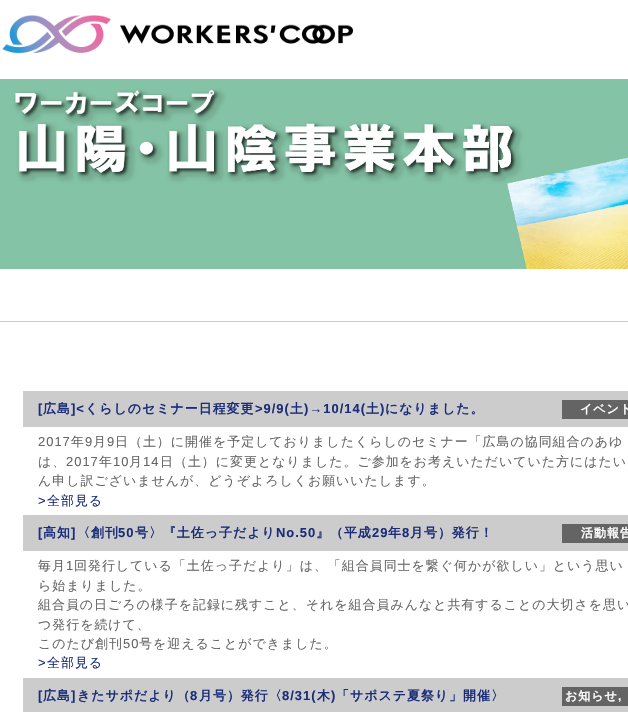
void draw(SkCanvas* canvas) {
	SkPaint paint;
	paint.setAntiAlias(true);
	auto spacedText = [&](const char* s, float x, float y, const SkFont& font, const SkPaint& ink, float letter, float word) {
		std::vector<SkGlyphID> glyphs(font.countText(s, strlen(s), SkTextEncoding::kUTF8));
		std::vector<float> xs(glyphs.size());
		font.textToGlyphs(s, strlen(s), SkTextEncoding::kUTF8, glyphs);
		font.getXPos(glyphs, xs, x);
		float extra = 0;
		for (size_t i = 0; i < glyphs.size(); i++) {
			xs[i] += extra;
			extra += letter + word * (glyphs[i] == font.unicharToGlyph(' '));
		}
		canvas->drawTextBlob(SkTextBlob::MakeFromPosHGlyphs(glyphs, xs, y, font), 0, 0, ink);
	};
	canvas->clear(0xffffffff);
	canvas->drawImageRect(SkImages::DeferredFromEncodedData(SkData::MakeFromFileName("img1.png")), SkRect::MakeXYWH(2, 15, 352, 39), SkSamplingOptions());
	canvas->drawImageRect(SkImages::DeferredFromEncodedData(SkData::MakeFromFileName("img2.png")), SkRect::MakeXYWH(0, 79, 628, 190), SkSamplingOptions());
	paint.setColor(0xffcccccc);
	canvas->drawRect(SkRect::MakeXYWH(0, 321, 628, 1), paint);
	canvas->drawRect(SkRect::MakeXYWH(23, 391, 605, 36), paint);
	SkFont f1(fontMgr->matchFamilyStyle("Liberation Sans", SkFontStyle::Bold()), 12.95);
	f1.setSubpixel(true);
	paint.setColor(0xff1b2d79);
	spacedText("[", 38, 413, f1, paint, 1, 0);
	SkFont f2(fontMgr->matchFamilyStyle("WenQuanYi Zen Hei", SkFontStyle::Bold()), 12.95);
	f2.setSubpixel(true);
	spacedText("広島", 43, 413, f2, paint, 1, 0);
	spacedText("]<", 71, 413, f1, paint, 1, 0);
	spacedText("くらしのセミナー日程変更", 85, 413, f2, paint, 1, 0);
	spacedText(">9/9(", 255, 413, f1, paint, 1, 0);
	spacedText("土", 290, 413, f2, paint, 1, 0);
	spacedText(")→10/14(", 304, 413, f1, paint, 1, 0);
	spacedText("土", 366, 413, f2, paint, 1, 0);
	spacedText(")", 380, 413, f1, paint, 1, 0);
	spacedText("になりました。", 385, 413, f2, paint, 1, 0);
	paint.setColor(0xff646464);
	canvas->drawRect(SkRect::MakeXYWH(562, 400, 66, 19), paint);
	SkFont f3(fontMgr->matchFamilyStyle("WenQuanYi Zen Hei", SkFontStyle::Bold()), 12);
	f3.setSubpixel(true);
	paint.setColor(0xffffffff);
	spacedText("イベント", 580, 413, f3, paint, 1, 0);
	SkFont f4(fontMgr->matchFamilyStyle("Liberation Sans", SkFontStyle::Normal()), 12.95);
	f4.setSubpixel(true);
	paint.setColor(0xff666666);
	spacedText("2017", 38, 446, f4, paint, 1, 0);
	SkFont f5(fontMgr->matchFamilyStyle("WenQuanYi Zen Hei", SkFontStyle(500, SkFontStyle::kNormal_Width, SkFontStyle::kUpright_Slant)), 12.95);
	f5.setSubpixel(true);
	spacedText("年", 71, 446, f5, paint, 1, 0);
	spacedText("9", 85, 446, f4, paint, 1, 0);
	spacedText("月", 93, 446, f5, paint, 1, 0);
	spacedText("9", 107, 446, f4, paint, 1, 0);
	spacedText("日（土）に開催を予定しておりましたくらしのセミナー「広島の協同組合のあゆ", 115, 446, f5, paint, 1, 0);
	spacedText("は、", 38, 466, f5, paint, 1, 0);
	spacedText("2017", 66, 466, f4, paint, 1, 0);
	spacedText("年", 99, 466, f5, paint, 1, 0);
	spacedText("10", 113, 466, f4, paint, 1, 0);
	spacedText("月", 129, 466, f5, paint, 1, 0);
	spacedText("14", 143, 466, f4, paint, 1, 0);
	spacedText("日（土）に変更となりました。ご参加をお考えいただいていた方にはたい", 160, 466, f5, paint, 1, 0);
	spacedText("ん申し訳ございませんが、どうぞよろしくお願いいたします。", 38, 485, f5, paint, 1, 0);
	paint.setColor(0xff1b2d79);
	spacedText(">", 38, 505, f4, paint, 1, 0);
	spacedText("全部見る", 47, 505, f5, paint, 1, 0);
	paint.setColor(0xffcccccc);
	canvas->drawRect(SkRect::MakeXYWH(23, 515, 605, 36), paint);
	paint.setColor(0xff1b2d79);
	spacedText("[", 38, 537, f1, paint, 1, 0);
	spacedText("高知", 43, 537, f2, paint, 1, 0);
	spacedText("]", 71, 537, f1, paint, 1, 0);
	spacedText("〈創刊", 77, 537, f2, paint, 1, 0);
	spacedText("50", 118, 537, f1, paint, 1, 0);
	spacedText("号〉『土佐っ子だより", 135, 537, f2, paint, 1, 0);
	spacedText("No.50", 276, 537, f1, paint, 1, 0);
	spacedText("』（平成", 316, 537, f2, paint, 1, 0);
	spacedText("29", 372, 537, f1, paint, 1, 0);
	spacedText("年", 388, 537, f2, paint, 1, 0);
	spacedText("8", 402, 537, f1, paint, 1, 0);
	spacedText("月号）発行！", 410, 537, f2, paint, 1, 0);
	paint.setColor(0xff646464);
	canvas->drawRect(SkRect::MakeXYWH(562, 524, 66, 19), paint);
	paint.setColor(0xffffffff);
	spacedText("活動報告", 581, 537, f3, paint, 1, 0);
	paint.setColor(0xff666666);
	spacedText("毎月", 38, 570, f5, paint, 1, 0);
	spacedText("1", 66, 570, f4, paint, 1, 0);
	spacedText("回発行している「土佐っ子だより」は、「組合員同士を繋ぐ何かが欲しい」という思い", 74, 570, f5, paint, 1, 0);
	spacedText("ら始まりました。", 38, 590, f5, paint, 1, 0);
	spacedText("組合員の日ごろの様子を記録に残すこと、それを組合員みんなと共有することの大切さを思い", 38, 609, f5, paint, 1, 0);
	spacedText("つ発行を続けて、", 38, 629, f5, paint, 1, 0);
	spacedText("このたび創刊", 38, 648, f5, paint, 1, 0);
	spacedText("50", 123, 648, f4, paint, 1, 0);
	spacedText("号を迎えることができました。", 139, 648, f5, paint, 1, 0);
	paint.setColor(0xff1b2d79);
	spacedText(">", 38, 667, f4, paint, 1, 0);
	spacedText("全部見る", 47, 667, f5, paint, 1, 0);
	paint.setColor(0xffcccccc);
	canvas->drawRect(SkRect::MakeXYWH(23, 678, 605, 34), paint);
	paint.setColor(0xff1b2d79);
	spacedText("[", 38, 700, f1, paint, 1, 0);
	spacedText("広島", 43, 700, f2, paint, 1, 0);
	spacedText("]", 71, 700, f1, paint, 1, 0);
	spacedText("きたサポだより（", 77, 700, f2, paint, 1, 0);
	spacedText("8", 190, 700, f1, paint, 1, 0);
	spacedText("月号）発行〈", 199, 700, f2, paint, 1, 0);
	spacedText("8/31(", 282, 700, f1, paint, 1, 0);
	spacedText("木", 317, 700, f2, paint, 1, 0);
	spacedText(")", 331, 700, f1, paint, 1, 0);
	spacedText("「サポステ夏祭り」開催〉", 336, 700, f2, paint, 1, 0);
	paint.setColor(0xff646464);
	canvas->drawRect(SkRect::MakeXYWH(562, 687, 66, 19), paint);
	paint.setColor(0xffffffff);
	spacedText("お知らせ", 565, 700, f3, paint, 1, 0);
	SkFont f6(fontMgr->matchFamilyStyle("Liberation Sans", SkFontStyle::Bold()), 12);
	f6.setSubpixel(true);
	spacedText(",", 618, 700, f6, paint, 1, 0);
}
